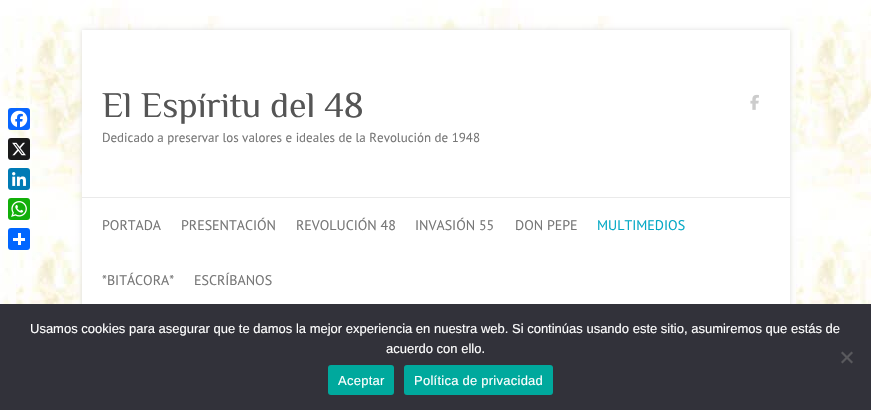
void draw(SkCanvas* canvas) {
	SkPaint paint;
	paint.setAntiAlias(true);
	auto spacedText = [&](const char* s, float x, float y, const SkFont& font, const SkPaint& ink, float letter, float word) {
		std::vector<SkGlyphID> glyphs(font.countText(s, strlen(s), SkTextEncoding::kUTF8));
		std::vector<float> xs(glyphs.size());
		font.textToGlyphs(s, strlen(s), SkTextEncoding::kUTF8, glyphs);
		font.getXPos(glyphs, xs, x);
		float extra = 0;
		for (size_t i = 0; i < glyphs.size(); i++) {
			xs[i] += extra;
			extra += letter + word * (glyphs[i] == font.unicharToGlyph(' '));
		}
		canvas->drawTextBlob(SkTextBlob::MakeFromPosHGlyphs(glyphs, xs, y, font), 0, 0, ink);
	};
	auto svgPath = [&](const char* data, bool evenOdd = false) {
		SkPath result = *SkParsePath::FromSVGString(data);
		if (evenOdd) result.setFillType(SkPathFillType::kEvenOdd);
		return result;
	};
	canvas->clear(0xffffffff);
	canvas->drawImageRect(SkImages::DeferredFromEncodedData(SkData::MakeFromFileName("img1.png")), SkRect::MakeXYWH(0, 0, 871, 304), SkSamplingOptions());
	paint.setColor(0xff0866ff);
	canvas->drawRoundRect(SkRect::MakeXYWH(8, 108, 22, 22), 3, 3, paint);
	canvas->drawImageRect(SkImages::DeferredFromEncodedData(SkData::MakeFromFileName("img2.png")), SkRect::MakeXYWH(10, 110, 18, 18), SkSamplingOptions());
	paint.setColor(0xff1a1a1a);
	canvas->drawRoundRect(SkRect::MakeXYWH(8, 138, 22, 22), 3, 3, paint);
	canvas->drawImageRect(SkImages::DeferredFromEncodedData(SkData::MakeFromFileName("img3.png")), SkRect::MakeXYWH(12, 142, 14, 14), SkSamplingOptions());
	paint.setColor(0xff007bb5);
	canvas->drawRoundRect(SkRect::MakeXYWH(8, 168, 22, 22), 3, 3, paint);
	canvas->drawImageRect(SkImages::DeferredFromEncodedData(SkData::MakeFromFileName("img4.png")), SkRect::MakeXYWH(12, 172, 14, 14), SkSamplingOptions());
	paint.setColor(0xff12af0a);
	canvas->drawRoundRect(SkRect::MakeXYWH(8, 198, 22, 22), 3, 3, paint);
	canvas->drawImageRect(SkImages::DeferredFromEncodedData(SkData::MakeFromFileName("img5.png")), SkRect::MakeXYWH(11, 201, 16, 16), SkSamplingOptions());
	paint.setColor(0xff0166ff);
	canvas->drawRoundRect(SkRect::MakeXYWH(8, 228, 22, 22), 3, 3, paint);
	paint.setColor(0xffffffff);
	canvas->drawRect(SkRect::MakeXYWH(18, 233, 3, 12), paint);
	canvas->drawRect(SkRect::MakeXYWH(13, 238, 12, 3), paint);
	paint.setColor(0xffdddddd);
	paint.setMaskFilter(SkMaskFilter::MakeBlur(kNormal_SkBlurStyle, 2.5));
	canvas->drawRect(SkRect::MakeXYWH(82, 30, 708, 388), paint);
	paint.setMaskFilter(nullptr);
	paint.setColor(0xffffffff);
	canvas->drawRect(SkRect::MakeXYWH(82, 30, 708, 274), paint);
	SkFont f1(fontMgr->matchFamilyStyle("Philosopher", SkFontStyle::Normal()), 36);
	f1.setSubpixel(true);
	paint.setColor(0xff555555);
	canvas->drawString("El Espíritu del 48", 102, 117, f1, paint);
	SkFont f2(fontMgr->matchFamilyStyle("PT Sans", SkFontStyle::Normal()), 13);
	f2.setSubpixel(true);
	paint.setColor(0xff777777);
	canvas->drawString("Dedicado a preservar los valores e ideales de la Revolución de 1948", 102, 142, f2, paint);
	canvas->drawImageRect(SkImages::DeferredFromEncodedData(SkData::MakeFromFileName("img6.png")), SkRect::MakeXYWH(750, 94, 9, 16), SkSamplingOptions());
	paint.setColor(0xffeaeaea);
	canvas->drawRect(SkRect::MakeXYWH(82, 197, 708, 1), paint);
	SkFont f3(fontMgr->matchFamilyStyle("PT Sans", SkFontStyle::Normal()), 14);
	f3.setSubpixel(true);
	paint.setColor(0xff777777);
	canvas->drawString("PORTADA", 102, 230, f3, paint);
	canvas->drawString("PRESENTACIÓN", 181, 230, f3, paint);
	canvas->drawString("REVOLUCIÓN 48", 296, 230, f3, paint);
	canvas->drawString("INVASIÓN 55", 415, 230, f3, paint);
	canvas->drawString("DON PEPE", 515, 230, f3, paint);
	paint.setColor(0xff05a9c5);
	canvas->drawString("MULTIMEDIOS", 597, 230, f3, paint);
	paint.setColor(0xff777777);
	canvas->drawString("*BITÁCORA*", 102, 285, f3, paint);
	canvas->drawString("ESCRÍBANOS", 194, 285, f3, paint);
	paint.setColor(0xff32323a);
	canvas->drawRect(SkRect::MakeXYWH(0, 304, 871, 106), paint);
	SkFont f4(fontMgr->matchFamilyStyle("Liberation Sans", SkFontStyle::Normal()), 13);
	f4.setSubpixel(true);
	paint.setColor(0xffffffff);
	canvas->drawString("Usamos cookies para asegurar que te damos la mejor experiencia en nuestra web. Si continúas usando este sitio, asumiremos que estás de", 30, 333, f4, paint);
	canvas->drawString("acuerdo con ello.", 386, 353, f4, paint);
	paint.setColor(0xff59595d);
	canvas->drawPath(svgPath("M851.5 351.5L853 353L842.5 363.5L841 362Z"), paint);
	canvas->drawPath(svgPath("M841 353L842.5 351.5L853 362L851.5 363.5Z"), paint);
	paint.setColor(0xff00a99d);
	canvas->drawRoundRect(SkRect::MakeXYWH(328, 365, 66, 30), 3, 3, paint);
	paint.setColor(0xffffffff);
	spacedText("Aceptar", 338, 385, f4, paint, 0.25, 0);
	paint.setColor(0xff00a99d);
	canvas->drawRoundRect(SkRect::MakeXYWH(404, 365, 149, 30), 3, 3, paint);
	paint.setColor(0xffffffff);
	spacedText("Política de privacidad", 414, 385, f4, paint, 0.25, 0);
}
